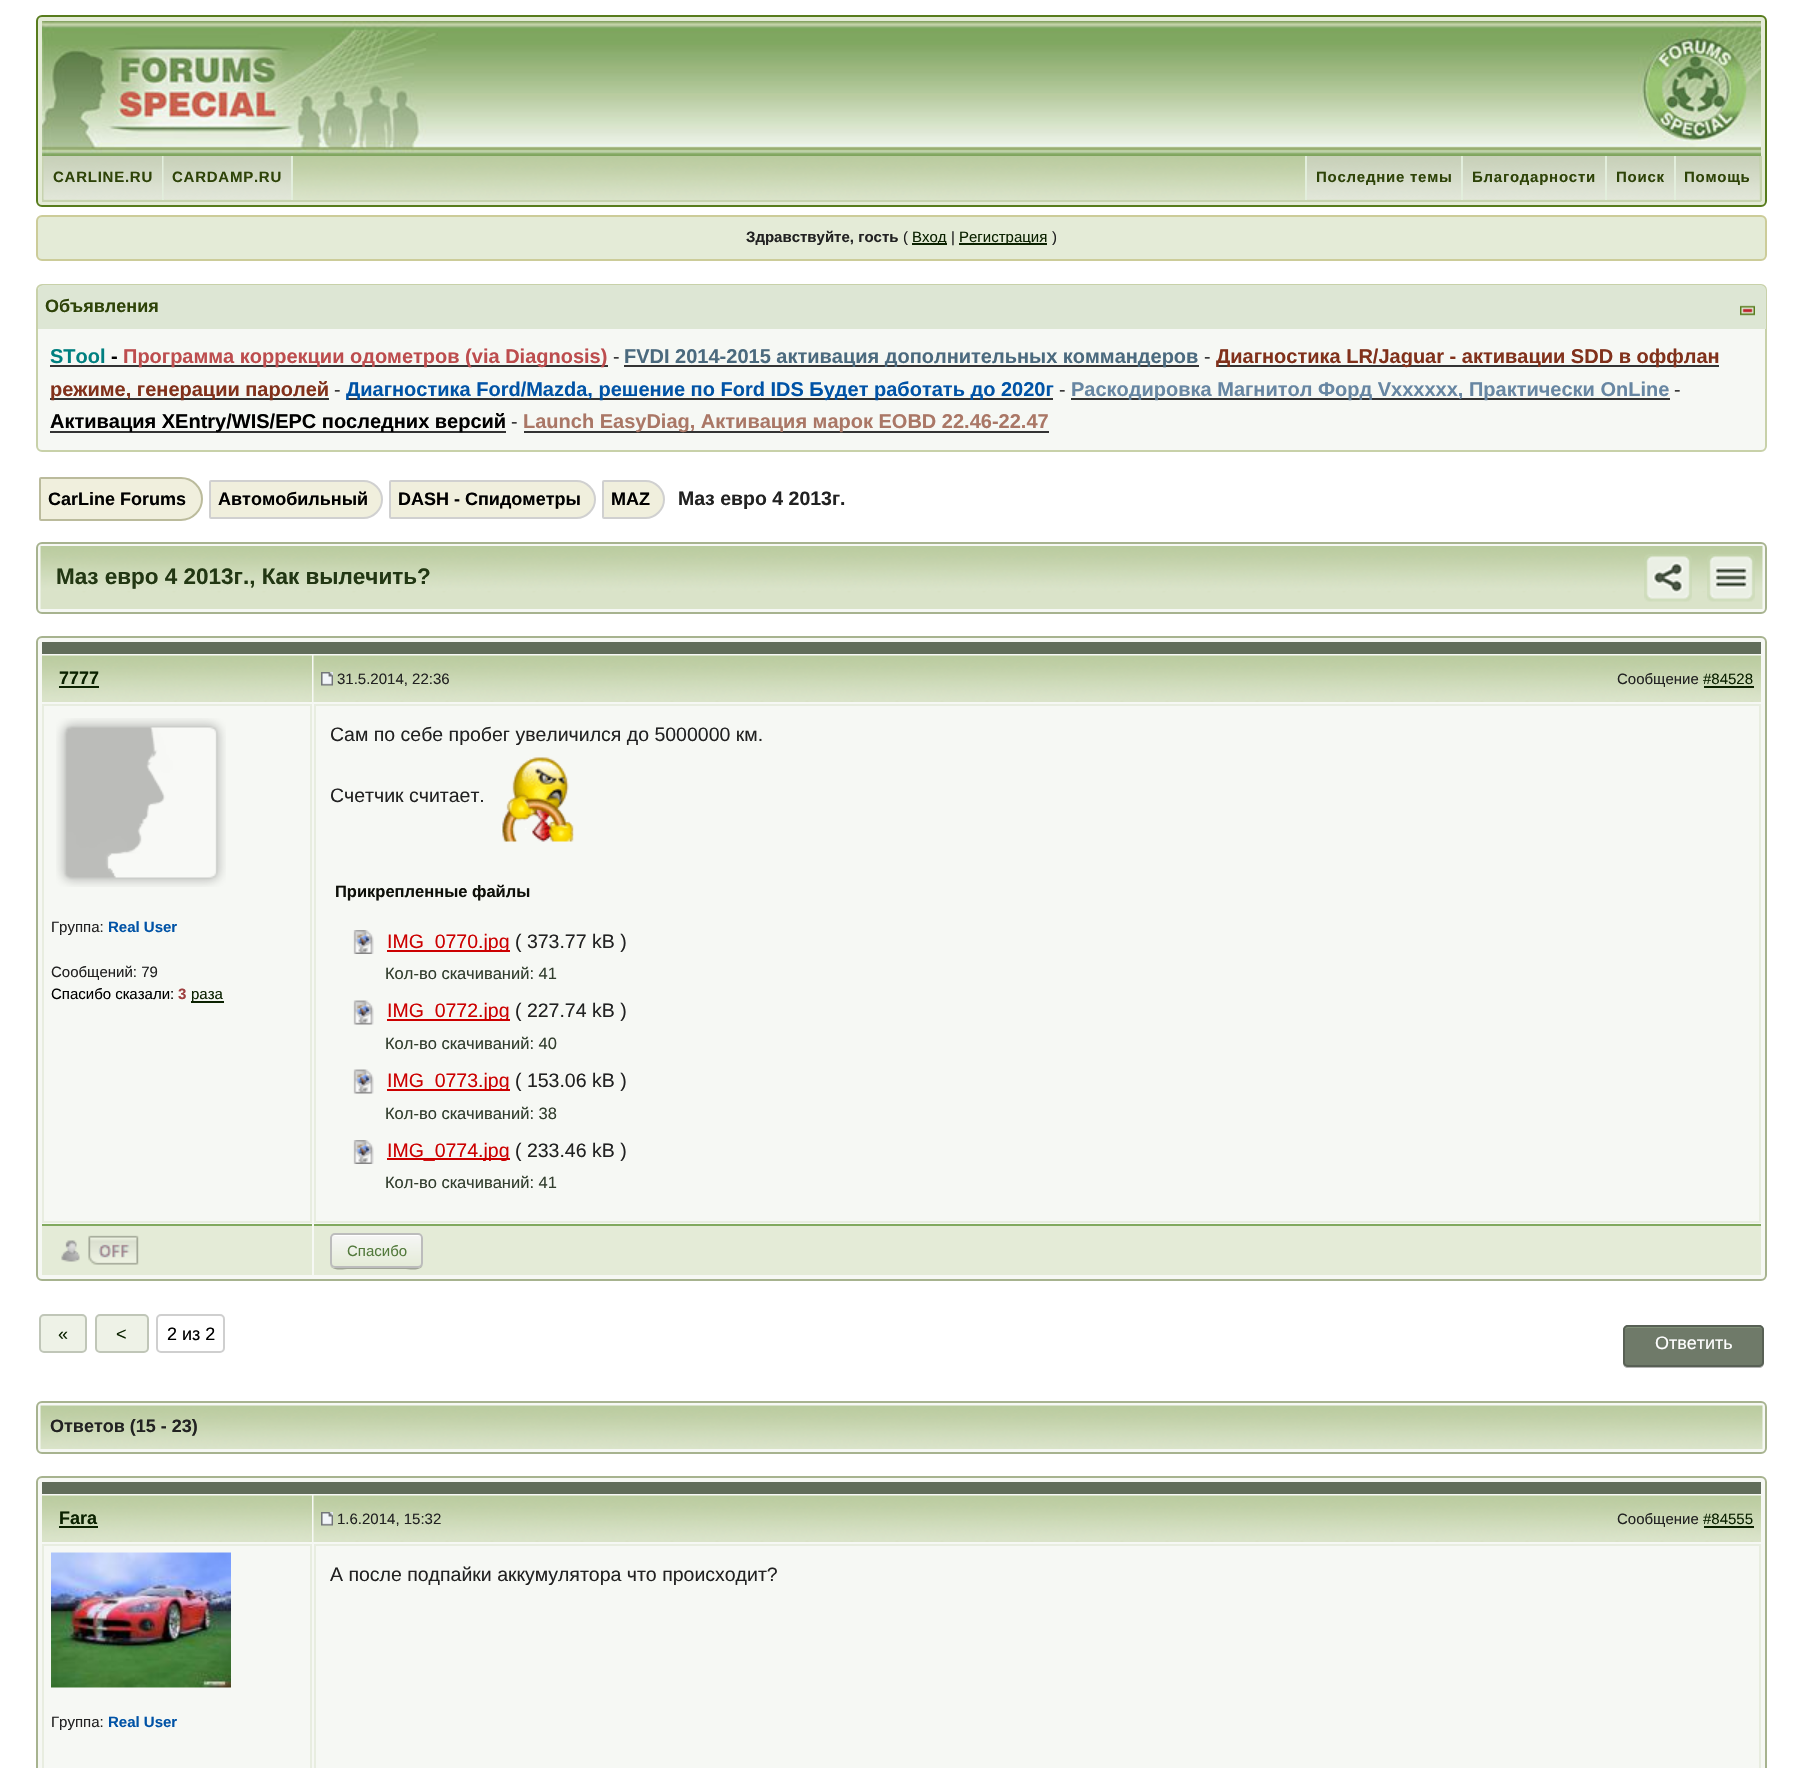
void draw(SkCanvas* canvas) {
	SkPaint paint;
	paint.setAntiAlias(true);
	auto spacedText = [&](const char* s, float x, float y, const SkFont& font, const SkPaint& ink, float letter, float word) {
		std::vector<SkGlyphID> glyphs(font.countText(s, strlen(s), SkTextEncoding::kUTF8));
		std::vector<float> xs(glyphs.size());
		font.textToGlyphs(s, strlen(s), SkTextEncoding::kUTF8, glyphs);
		font.getXPos(glyphs, xs, x);
		float extra = 0;
		for (size_t i = 0; i < glyphs.size(); i++) {
			xs[i] += extra;
			extra += letter + word * (glyphs[i] == font.unicharToGlyph(' '));
		}
		canvas->drawTextBlob(SkTextBlob::MakeFromPosHGlyphs(glyphs, xs, y, font), 0, 0, ink);
	};
	auto svgPath = [&](const char* data, bool evenOdd = false) {
		SkPath result = *SkParsePath::FromSVGString(data);
		if (evenOdd) result.setFillType(SkPathFillType::kEvenOdd);
		return result;
	};
	canvas->clear(0xffffffff);
	paint.setColor(0xffe4ebd7);
	canvas->drawRoundRect(SkRect::MakeXYWH(37, 16, 1729, 190), 5, 5, paint);
	paint.setStroke(true);
	paint.setStrokeWidth(2);
	paint.setColor(0xff587c1d);
	canvas->drawRoundRect(SkRect::MakeXYWH(37, 16, 1729, 190), 5, 5, paint);
	canvas->drawImageRect(SkImages::DeferredFromEncodedData(SkData::MakeFromFileName("img1.png")), SkRect::MakeXYWH(438, 21, 1323, 135), SkSamplingOptions());
	canvas->drawImageRect(SkImages::DeferredFromEncodedData(SkData::MakeFromFileName("img2.png")), SkRect::MakeXYWH(42, 21, 396, 135), SkSamplingOptions());
	canvas->drawImageRect(SkImages::DeferredFromEncodedData(SkData::MakeFromFileName("img3.png")), SkRect::MakeXYWH(1638, 21, 123, 130), SkSamplingOptions());
	canvas->drawImageRect(SkImages::DeferredFromEncodedData(SkData::MakeFromFileName("img4.png")), SkRect::MakeXYWH(44, 156, 1716, 44), SkSamplingOptions());
	paint.setStroke(false);
	paint.setColor(0xffc7d3af);
	canvas->drawRect(SkRect::MakeXYWH(1760, 156, 2, 45), paint);
	canvas->drawRect(SkRect::MakeXYWH(42, 200, 1719, 2), paint);
	canvas->drawRect(SkRect::MakeXYWH(42, 156, 2, 45), paint);
	canvas->drawImageRect(SkImages::DeferredFromEncodedData(SkData::MakeFromFileName("img5.png")), SkRect::MakeXYWH(43, 156, 119, 44), SkSamplingOptions());
	paint.setColor(0xffe2eedc);
	canvas->drawRect(SkRect::MakeXYWH(162, 156, 2, 44), paint);
	SkFont f1(fontMgr->matchFamilyStyle("Liberation Sans", SkFontStyle::Bold()), 15);
	f1.setSubpixel(true);
	paint.setColor(0xff2e4308);
	spacedText("CARLINE.RU", 53, 182, f1, paint, 0.75, 0);
	canvas->drawImageRect(SkImages::DeferredFromEncodedData(SkData::MakeFromFileName("img6.png")), SkRect::MakeXYWH(163, 156, 128, 44), SkSamplingOptions());
	paint.setColor(0xffe2eedc);
	canvas->drawRect(SkRect::MakeXYWH(291, 156, 2, 44), paint);
	paint.setColor(0xff2e4308);
	spacedText("CARDAMP.RU", 172, 182, f1, paint, 0.75, 0);
	canvas->drawImageRect(SkImages::DeferredFromEncodedData(SkData::MakeFromFileName("img7.png")), SkRect::MakeXYWH(1307, 156, 154, 44), SkSamplingOptions());
	paint.setColor(0xffe2eedc);
	canvas->drawRect(SkRect::MakeXYWH(1305, 156, 2, 44), paint);
	paint.setColor(0xff2e4308);
	spacedText("Последние темы", 1316, 182, f1, paint, 0.75, 0);
	canvas->drawImageRect(SkImages::DeferredFromEncodedData(SkData::MakeFromFileName("img8.png")), SkRect::MakeXYWH(1463, 156, 142, 44), SkSamplingOptions());
	paint.setColor(0xffe2eedc);
	canvas->drawRect(SkRect::MakeXYWH(1461, 156, 2, 44), paint);
	paint.setColor(0xff2e4308);
	spacedText("Благодарности", 1472, 182, f1, paint, 0.75, 0);
	canvas->drawImageRect(SkImages::DeferredFromEncodedData(SkData::MakeFromFileName("img9.png")), SkRect::MakeXYWH(1607, 156, 67, 44), SkSamplingOptions());
	paint.setColor(0xffe2eedc);
	canvas->drawRect(SkRect::MakeXYWH(1605, 156, 2, 44), paint);
	paint.setColor(0xff2e4308);
	spacedText("Поиск", 1616, 182, f1, paint, 0.75, 0);
	canvas->drawImageRect(SkImages::DeferredFromEncodedData(SkData::MakeFromFileName("img10.png")), SkRect::MakeXYWH(1676, 156, 84, 44), SkSamplingOptions());
	paint.setColor(0xffe2eedc);
	canvas->drawRect(SkRect::MakeXYWH(1674, 156, 2, 44), paint);
	paint.setColor(0xff2e4308);
	spacedText("Помощь", 1684, 182, f1, paint, 0.75, 0);
	paint.setColor(0xffe4ebd7);
	canvas->drawRoundRect(SkRect::MakeXYWH(37, 216, 1729, 44), 5, 5, paint);
	paint.setStroke(true);
	paint.setColor(0xffcccc99);
	canvas->drawRoundRect(SkRect::MakeXYWH(37, 216, 1729, 44), 5, 5, paint);
	paint.setStroke(false);
	paint.setColor(0xff222222);
	canvas->drawString("Здравствуйте, гость", 746, 242, f1, paint);
	SkFont f2(fontMgr->matchFamilyStyle("Liberation Sans", SkFontStyle::Normal()), 15);
	f2.setSubpixel(true);
	canvas->drawString("(", 903, 242, f2, paint);
	paint.setColor(0xff0b2200);
	canvas->drawRect(SkRect::MakeXYWH(912, 243, 35, 2), paint);
	canvas->drawString("Вход", 912, 242, f2, paint);
	paint.setColor(0xff222222);
	canvas->drawString("|", 951, 242, f2, paint);
	paint.setColor(0xff0b2200);
	canvas->drawRect(SkRect::MakeXYWH(959, 243, 88, 2), paint);
	canvas->drawString("Регистрация", 959, 242, f2, paint);
	paint.setColor(0xff222222);
	canvas->drawString(")", 1052, 242, f2, paint);
	paint.setColor(0xfff6f8f4);
	canvas->drawRoundRect(SkRect::MakeXYWH(37, 285, 1729, 166), 5, 5, paint);
	paint.setStroke(true);
	paint.setColor(0xffc8d1a9);
	canvas->drawRoundRect(SkRect::MakeXYWH(37, 285, 1729, 166), 5, 5, paint);
	paint.setStroke(false);
	paint.setColor(0xffdde6d4);
	canvas->drawPath(svgPath("M44 285H1760C1763.5 285 1766 287.5 1766 291V329H38V291C38 287.5 40.5 285 44 285Z"), paint);
	SkFont f3(fontMgr->matchFamilyStyle("Liberation Sans", SkFontStyle::Bold()), 18);
	f3.setSubpixel(true);
	paint.setColor(0xff2e4308);
	canvas->drawString("Объявления", 45, 312, f3, paint);
	canvas->drawImageRect(SkImages::DeferredFromEncodedData(SkData::MakeFromFileName("img11.png")), SkRect::MakeXYWH(1740, 305, 15, 11), SkSamplingOptions());
	SkFont f4(fontMgr->matchFamilyStyle("Liberation Sans", SkFontStyle::Bold()), 20);
	f4.setSubpixel(true);
	paint.setColor(0xff008080);
	canvas->drawString("STool", 50, 363, f4, paint);
	paint.setColor(0xff000000);
	canvas->drawString("-", 111, 363, f4, paint);
	paint.setColor(0xff333333);
	canvas->drawRect(SkRect::MakeXYWH(50, 365, 558, 2), paint);
	paint.setColor(0xffbd4d4e);
	canvas->drawString("Программа коррекции одометров (via Diagnosis)", 123, 363, f4, paint);
	SkFont f5(fontMgr->matchFamilyStyle("Liberation Sans", SkFontStyle::Normal()), 19.5);
	f5.setSubpixel(true);
	paint.setColor(0xff333333);
	canvas->drawString("-", 613, 363, f5, paint);
	canvas->drawRect(SkRect::MakeXYWH(624, 365, 575, 2), paint);
	paint.setColor(0xff4b6a7e);
	canvas->drawString("FVDI 2014-2015 активация дополнительных коммандеров", 624, 363, f4, paint);
	paint.setColor(0xff333333);
	canvas->drawString("-", 1204, 363, f5, paint);
	canvas->drawRect(SkRect::MakeXYWH(1217, 365, 502, 2), paint);
	paint.setColor(0xff81311b);
	canvas->drawString("Диагностика LR/Jaguar - активации SDD в оффлан", 1216, 363, f4, paint);
	paint.setColor(0xff333333);
	canvas->drawRect(SkRect::MakeXYWH(50, 398, 279, 2), paint);
	paint.setColor(0xff81311b);
	canvas->drawString("режиме, генерации паролей", 50, 396, f4, paint);
	paint.setColor(0xff333333);
	canvas->drawString("-", 334, 396, f5, paint);
	canvas->drawRect(SkRect::MakeXYWH(347, 398, 706, 2), paint);
	paint.setColor(0xff0053a6);
	canvas->drawString("Диагностика Ford/Mazda, решение по Ford IDS Будет работать до 2020г", 346, 396, f4, paint);
	paint.setColor(0xff333333);
	canvas->drawString("-", 1059, 396, f5, paint);
	canvas->drawRect(SkRect::MakeXYWH(1071, 398, 599, 2), paint);
	paint.setColor(0xff6786a2);
	canvas->drawString("Раскодировка Магнитол Форд Vxxxxxx, Практически OnLine", 1071, 396, f4, paint);
	paint.setColor(0xff333333);
	canvas->drawString("-", 1674, 396, f5, paint);
	canvas->drawRect(SkRect::MakeXYWH(50, 431, 456, 2), paint);
	paint.setColor(0xff000000);
	canvas->drawString("Активация XEntry/WIS/EPC последних версий", 50, 428, f4, paint);
	paint.setColor(0xff333333);
	canvas->drawString("-", 511, 428, f5, paint);
	canvas->drawRect(SkRect::MakeXYWH(524, 431, 525, 2), paint);
	paint.setColor(0xffaa7766);
	canvas->drawString("Launch EasyDiag, Активация марок EOBD 22.46-22.47", 523, 428, f4, paint);
	paint.setColor(0xfff0efdd);
	canvas->drawPath(svgPath("M41 478H181C192.5 478 202 487.5 202 499C202 510.5 192.5 520 181 520H41C40.5 520 40 519.5 40 519V479C40 478.5 40.5 478 41 478Z"), paint);
	paint.setStroke(true);
	paint.setColor(0xffbbbb9c);
	canvas->drawPath(svgPath("M41 478H181C192.5 478 202 487.5 202 499C202 510.5 192.5 520 181 520H41C40.5 520 40 519.5 40 519V479C40 478.5 40.5 478 41 478Z"), paint);
	paint.setStroke(false);
	paint.setColor(0xff000000);
	canvas->drawString("CarLine Forums", 48, 505, f3, paint);
	paint.setColor(0xfff0efdd);
	canvas->drawPath(svgPath("M211 481H363.5C373.5 481 382 489.5 382 499.5C382 509.5 373.5 518 363.5 518H211C210.5 518 210 517.5 210 517V482C210 481.5 210.5 481 211 481Z"), paint);
	paint.setStroke(true);
	paint.setColor(0xffd0d0d0);
	canvas->drawPath(svgPath("M211 481H363.5C373.5 481 382 489.5 382 499.5C382 509.5 373.5 518 363.5 518H211C210.5 518 210 517.5 210 517V482C210 481.5 210.5 481 211 481Z"), paint);
	paint.setStroke(false);
	paint.setColor(0xff000000);
	canvas->drawString("Автомобильный", 218, 505, f3, paint);
	paint.setColor(0xfff0efdd);
	canvas->drawPath(svgPath("M391 481H576.5C586.5 481 595 489.5 595 499.5C595 509.5 586.5 518 576.5 518H391C390.5 518 390 517.5 390 517V482C390 481.5 390.5 481 391 481Z"), paint);
	paint.setStroke(true);
	paint.setColor(0xffd0d0d0);
	canvas->drawPath(svgPath("M391 481H576.5C586.5 481 595 489.5 595 499.5C595 509.5 586.5 518 576.5 518H391C390.5 518 390 517.5 390 517V482C390 481.5 390.5 481 391 481Z"), paint);
	paint.setStroke(false);
	paint.setColor(0xff000000);
	canvas->drawString("DASH - Спидометры", 398, 505, f3, paint);
	paint.setColor(0xfff0efdd);
	canvas->drawPath(svgPath("M604 481H645.5C655.5 481 664 489.5 664 499.5C664 509.5 655.5 518 645.5 518H604C603.5 518 603 517.5 603 517V482C603 481.5 603.5 481 604 481Z"), paint);
	paint.setStroke(true);
	paint.setColor(0xffd0d0d0);
	canvas->drawPath(svgPath("M604 481H645.5C655.5 481 664 489.5 664 499.5C664 509.5 655.5 518 645.5 518H604C603.5 518 603 517.5 603 517V482C603 481.5 603.5 481 604 481Z"), paint);
	paint.setStroke(false);
	paint.setColor(0xff000000);
	canvas->drawString("MAZ", 611, 505, f3, paint);
	SkFont f6(fontMgr->matchFamilyStyle("Liberation Sans", SkFontStyle::Bold()), 19.5);
	f6.setSubpixel(true);
	paint.setColor(0xff222222);
	canvas->drawString("Маз евро 4 2013г.", 678, 505, f6, paint);
	paint.setColor(0xfff6f8f4);
	canvas->drawRoundRect(SkRect::MakeXYWH(37, 543, 1729, 70), 5, 5, paint);
	paint.setStroke(true);
	paint.setColor(0xffa7b38f);
	canvas->drawRoundRect(SkRect::MakeXYWH(37, 543, 1729, 70), 5, 5, paint);
	canvas->drawImageRect(SkImages::DeferredFromEncodedData(SkData::MakeFromFileName("img12.png")), SkRect::MakeXYWH(40, 546, 1723, 63), SkSamplingOptions());
	SkFont f7(fontMgr->matchFamilyStyle("Liberation Sans", SkFontStyle::Bold()), 22.5);
	f7.setSubpixel(true);
	paint.setStroke(false);
	paint.setColor(0xff223713);
	canvas->drawString("Маз евро 4 2013г., Как вылечить?", 56, 584, f7, paint);
	canvas->drawImageRect(SkImages::DeferredFromEncodedData(SkData::MakeFromFileName("img13.png")), SkRect::MakeXYWH(1644, 554, 48, 48), SkSamplingOptions());
	canvas->drawImageRect(SkImages::DeferredFromEncodedData(SkData::MakeFromFileName("img14.png")), SkRect::MakeXYWH(1707, 554, 48, 48), SkSamplingOptions());
	paint.setColor(0xfff6f8f4);
	canvas->drawRoundRect(SkRect::MakeXYWH(37, 637, 1729, 643), 5, 5, paint);
	paint.setStroke(true);
	paint.setColor(0xffa7b38f);
	canvas->drawRoundRect(SkRect::MakeXYWH(37, 637, 1729, 643), 5, 5, paint);
	paint.setStroke(false);
	paint.setColor(0xff616d5a);
	canvas->drawRect(SkRect::MakeXYWH(42, 642, 1719, 12), paint);
	canvas->drawImageRect(SkImages::DeferredFromEncodedData(SkData::MakeFromFileName("img15.png")), SkRect::MakeXYWH(42, 655, 270, 47), SkSamplingOptions());
	paint.setColor(0xff0b2200);
	canvas->drawString("7777", 59, 684, f3, paint);
	canvas->drawRect(SkRect::MakeXYWH(59, 686, 40, 2), paint);
	canvas->drawImageRect(SkImages::DeferredFromEncodedData(SkData::MakeFromFileName("img16.png")), SkRect::MakeXYWH(313, 655, 1448, 47), SkSamplingOptions());
	canvas->drawImageRect(SkImages::DeferredFromEncodedData(SkData::MakeFromFileName("img17.png")), SkRect::MakeXYWH(321, 672, 12, 14), SkSamplingOptions());
	paint.setColor(0xff222222);
	canvas->drawString("31.5.2014, 22:36", 337, 684, f2, paint);
	canvas->drawString("Сообщение", 1617, 684, f2, paint);
	paint.setColor(0xff0b2200);
	canvas->drawString("#84528", 1703, 684, f2, paint);
	canvas->drawRect(SkRect::MakeXYWH(1704, 686, 50, 2), paint);
	paint.setStroke(true);
	paint.setColor(0xffe8ede0);
	canvas->drawRect(SkRect::MakeXYWH(43, 705, 268, 517), paint);
	canvas->drawImageRect(SkImages::DeferredFromEncodedData(SkData::MakeFromFileName("img18.png")), SkRect::MakeXYWH(56, 718, 170, 169), SkSamplingOptions());
	paint.setStroke(false);
	paint.setColor(0xff222222);
	canvas->drawString("Группа:", 51, 932, f2, paint);
	paint.setColor(0xff0053a6);
	canvas->drawString("Real User", 108, 932, f1, paint);
	paint.setColor(0xff222222);
	canvas->drawString("Сообщений: 79", 51, 977, f2, paint);
	paint.setColor(0xff000000);
	canvas->drawString("Спасибо сказали:", 51, 999, f2, paint);
	paint.setColor(0xff9e3f3f);
	canvas->drawString("3", 178, 999, f1, paint);
	paint.setColor(0xff0b2200);
	canvas->drawRect(SkRect::MakeXYWH(191, 1001, 33, 2), paint);
	canvas->drawString("раза", 191, 999, f2, paint);
	paint.setStroke(true);
	paint.setColor(0xffe8ede0);
	canvas->drawRect(SkRect::MakeXYWH(315, 705, 1445, 517), paint);
	paint.setStroke(false);
	paint.setColor(0xff222222);
	canvas->drawString("Сам по себе пробег увеличился до 5000000 км.", 330, 741, f5, paint);
	canvas->drawString("Счетчик считает.", 330, 802, f5, paint);
	canvas->drawImageRect(SkImages::DeferredFromEncodedData(SkData::MakeFromFileName("img19.png")), SkRect::MakeXYWH(501, 757, 73, 85), SkSamplingOptions());
	SkFont f8(fontMgr->matchFamilyStyle("Liberation Sans", SkFontStyle::Bold()), 16.5);
	f8.setSubpixel(true);
	paint.setColor(0xff0e1009);
	canvas->drawString("Прикрепленные файлы", 335, 897, f8, paint);
	canvas->drawImageRect(SkImages::DeferredFromEncodedData(SkData::MakeFromFileName("img20.png")), SkRect::MakeXYWH(353, 930, 21, 24), SkSamplingOptions());
	paint.setColor(0xffcc0000);
	canvas->drawRect(SkRect::MakeXYWH(387, 950, 123, 2), paint);
	canvas->drawString("IMG_0770.jpg", 387, 948, f5, paint);
	paint.setColor(0xff222222);
	canvas->drawString("( 373.77 kB )", 515, 948, f5, paint);
	SkFont f9(fontMgr->matchFamilyStyle("Liberation Sans", SkFontStyle::Normal()), 16.5);
	f9.setSubpixel(true);
	paint.setColor(0xff323e2e);
	canvas->drawString("Кол-во скачиваний: 41", 385, 979, f9, paint);
	canvas->drawImageRect(SkImages::DeferredFromEncodedData(SkData::MakeFromFileName("img21.png")), SkRect::MakeXYWH(353, 1000, 21, 25), SkSamplingOptions());
	paint.setColor(0xffcc0000);
	canvas->drawRect(SkRect::MakeXYWH(387, 1019, 123, 2), paint);
	canvas->drawString("IMG_0772.jpg", 387, 1017, f5, paint);
	paint.setColor(0xff222222);
	canvas->drawString("( 227.74 kB )", 515, 1017, f5, paint);
	paint.setColor(0xff323e2e);
	canvas->drawString("Кол-во скачиваний: 40", 385, 1049, f9, paint);
	canvas->drawImageRect(SkImages::DeferredFromEncodedData(SkData::MakeFromFileName("img21.png")), SkRect::MakeXYWH(353, 1069, 21, 25), SkSamplingOptions());
	paint.setColor(0xffcc0000);
	canvas->drawRect(SkRect::MakeXYWH(387, 1089, 123, 2), paint);
	canvas->drawString("IMG_0773.jpg", 387, 1087, f5, paint);
	paint.setColor(0xff222222);
	canvas->drawString("( 153.06 kB )", 515, 1087, f5, paint);
	paint.setColor(0xff323e2e);
	canvas->drawString("Кол-во скачиваний: 38", 385, 1119, f9, paint);
	canvas->drawImageRect(SkImages::DeferredFromEncodedData(SkData::MakeFromFileName("img20.png")), SkRect::MakeXYWH(353, 1140, 21, 24), SkSamplingOptions());
	paint.setColor(0xffcc0000);
	canvas->drawRect(SkRect::MakeXYWH(387, 1158, 123, 2), paint);
	canvas->drawString("IMG_0774.jpg", 387, 1157, f5, paint);
	paint.setColor(0xff222222);
	canvas->drawString("( 233.46 kB )", 515, 1157, f5, paint);
	paint.setColor(0xff323e2e);
	canvas->drawString("Кол-во скачиваний: 41", 385, 1188, f9, paint);
	paint.setColor(0xffe4ebd7);
	canvas->drawRect(SkRect::MakeXYWH(42, 1226, 270, 49), paint);
	paint.setColor(0xff81a95e);
	canvas->drawRect(SkRect::MakeXYWH(42, 1224, 270, 2), paint);
	canvas->drawImageRect(SkImages::DeferredFromEncodedData(SkData::MakeFromFileName("img22.png")), SkRect::MakeXYWH(61, 1240, 19, 22), SkSamplingOptions());
	canvas->drawImageRect(SkImages::DeferredFromEncodedData(SkData::MakeFromFileName("img23.png")), SkRect::MakeXYWH(88, 1235, 51, 30), SkSamplingOptions());
	paint.setColor(0xffe4ebd7);
	canvas->drawRect(SkRect::MakeXYWH(314, 1226, 1447, 49), paint);
	paint.setColor(0xff81a95e);
	canvas->drawRect(SkRect::MakeXYWH(314, 1224, 1447, 2), paint);
	paint.setColor(0xffa0a597);
	canvas->drawPath(svgPath("M330 1263C330 1272 343 1269 349 1269H404C410 1269 423 1272 423 1263C423 1265 421 1268 418 1268H334C332 1268 330 1265 330 1263Z"), paint);
	canvas->save();
	canvas->clipPath(svgPath("M335 1233H418C421 1233 423 1235 423 1238V1263C423 1266 421 1268 418 1268H335C332 1268 330 1266 330 1263V1238C330 1235 332 1233 335 1233Z"), true);
	{
		const SkColor colors[] = {0xfff6f6f6, 0xffe4ebd7};
		const float stops[] = {0, 1};
		const SkPoint ends[] = {{377, 1235}, {377, 1266}};
		paint.setShader(SkGradientShader::MakeLinear(ends, colors, stops, 2, SkTileMode::kClamp));
		paint.setAlpha(255);
	}
	canvas->drawRect(SkRect::MakeXYWH(330, 1235, 93, 31), paint);
	canvas->restore();
	paint.setShader(nullptr);
	paint.setColor(0xffffffff);
	canvas->drawPath(svgPath("M334 1236H418C420 1236 422 1237 422 1239C422 1231 409 1235 405 1235H349C345 1235 332 1231 332 1239C332 1237 333 1236 334 1236Z"), paint);
	paint.setStroke(true);
	paint.setColor(0xffbcbcbc);
	canvas->drawRoundRect(SkRect::MakeXYWH(331, 1234, 91, 33), 4, 4, paint);
	paint.setStroke(false);
	paint.setColor(0xff537a3c);
	canvas->drawString("Спасибо", 347, 1256, f2, paint);
	paint.setColor(0xffeef2e7);
	canvas->drawRoundRect(SkRect::MakeXYWH(40, 1315, 46, 37), 4, 4, paint);
	paint.setStroke(true);
	paint.setColor(0xffc0c6b8);
	canvas->drawRoundRect(SkRect::MakeXYWH(40, 1315, 46, 37), 4, 4, paint);
	SkFont f10(fontMgr->matchFamilyStyle("Liberation Sans", SkFontStyle::Normal()), 18);
	f10.setSubpixel(true);
	paint.setStroke(false);
	paint.setColor(0xff0b2200);
	canvas->drawString("«", 58, 1340, f10, paint);
	paint.setColor(0xffeef2e7);
	canvas->drawRoundRect(SkRect::MakeXYWH(96, 1315, 52, 37), 4, 4, paint);
	paint.setStroke(true);
	paint.setColor(0xffc0c6b8);
	canvas->drawRoundRect(SkRect::MakeXYWH(96, 1315, 52, 37), 4, 4, paint);
	paint.setStroke(false);
	paint.setColor(0xff0b2200);
	canvas->drawString("<", 116, 1340, f10, paint);
	paint.setStroke(true);
	paint.setColor(0xffcfcfcf);
	canvas->drawRoundRect(SkRect::MakeXYWH(157, 1315, 67, 37), 4, 4, paint);
	paint.setStroke(false);
	paint.setColor(0xff000000);
	canvas->drawString("2 из 2", 167, 1340, f10, paint);
	paint.setColor(0xffb3b3b3);
	canvas->drawPath(svgPath("M1623 1362V1363C1623 1366 1625 1368 1628 1368H1759C1762 1368 1764 1366 1764 1363V1362C1764 1364 1762 1366 1760 1366H1628C1625 1366 1623 1364 1623 1362Z"), paint);
	paint.setColor(0xff6f7a69);
	canvas->drawRoundRect(SkRect::MakeXYWH(1623, 1325, 141, 42), 5, 5, paint);
	paint.setColor(0xff819279);
	canvas->drawPath(svgPath("M1628 1328H1760C1761 1328 1762 1329 1762 1330V1364C1763 1364 1763 1363 1763 1362V1329C1763 1327 1762 1326 1760 1326H1628C1626 1326 1625 1327 1625 1329Z"), paint);
	paint.setStroke(true);
	paint.setColor(0xff586055);
	canvas->drawRoundRect(SkRect::MakeXYWH(1624, 1326, 139, 40), 4, 4, paint);
	paint.setStroke(false);
	paint.setColor(0xffffffff);
	canvas->drawString("Ответить", 1655, 1349, f10, paint);
	paint.setColor(0xfff6f8f4);
	canvas->drawRoundRect(SkRect::MakeXYWH(37, 1402, 1729, 51), 5, 5, paint);
	paint.setStroke(true);
	paint.setColor(0xffa7b38f);
	canvas->drawRoundRect(SkRect::MakeXYWH(37, 1402, 1729, 51), 5, 5, paint);
	canvas->drawImageRect(SkImages::DeferredFromEncodedData(SkData::MakeFromFileName("img24.png")), SkRect::MakeXYWH(40, 1405, 1723, 44), SkSamplingOptions());
	paint.setStroke(false);
	paint.setColor(0xff222222);
	canvas->drawString("Ответов (15 - 23)", 50, 1432, f3, paint);
	paint.setColor(0xfff6f8f4);
	canvas->drawRoundRect(SkRect::MakeXYWH(37, 1477, 1729, 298), 5, 5, paint);
	paint.setStroke(true);
	paint.setColor(0xffa7b38f);
	canvas->drawRoundRect(SkRect::MakeXYWH(37, 1477, 1729, 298), 5, 5, paint);
	paint.setStroke(false);
	paint.setColor(0xff616d5a);
	canvas->drawRect(SkRect::MakeXYWH(42, 1482, 1719, 12), paint);
	canvas->drawImageRect(SkImages::DeferredFromEncodedData(SkData::MakeFromFileName("img25.png")), SkRect::MakeXYWH(42, 1495, 270, 47), SkSamplingOptions());
	paint.setColor(0xff0b2200);
	canvas->drawString("Fara", 59, 1524, f3, paint);
	canvas->drawRect(SkRect::MakeXYWH(59, 1526, 39, 2), paint);
	canvas->drawImageRect(SkImages::DeferredFromEncodedData(SkData::MakeFromFileName("img26.png")), SkRect::MakeXYWH(313, 1495, 1448, 47), SkSamplingOptions());
	canvas->drawImageRect(SkImages::DeferredFromEncodedData(SkData::MakeFromFileName("img17.png")), SkRect::MakeXYWH(321, 1512, 12, 14), SkSamplingOptions());
	paint.setColor(0xff222222);
	canvas->drawString("1.6.2014, 15:32", 337, 1524, f2, paint);
	canvas->drawString("Сообщение", 1617, 1524, f2, paint);
	paint.setColor(0xff0b2200);
	canvas->drawString("#84555", 1703, 1524, f2, paint);
	canvas->drawRect(SkRect::MakeXYWH(1704, 1526, 50, 2), paint);
	paint.setStroke(true);
	paint.setColor(0xffe8ede0);
	canvas->drawRect(SkRect::MakeXYWH(315, 1545, 1445, 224), paint);
	paint.setStroke(false);
	paint.setColor(0xff222222);
	canvas->drawString("А после подпайки аккумулятора что происходит?", 330, 1581, f5, paint);
	paint.setStroke(true);
	paint.setColor(0xffe8ede0);
	canvas->drawRect(SkRect::MakeXYWH(43, 1545, 268, 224), paint);
	canvas->drawImageRect(SkImages::DeferredFromEncodedData(SkData::MakeFromFileName("img27.png")), SkRect::MakeXYWH(51, 1552, 180, 136), SkSamplingOptions());
	paint.setStroke(false);
	paint.setColor(0xff222222);
	canvas->drawString("Группа:", 51, 1727, f2, paint);
	paint.setColor(0xff0053a6);
	canvas->drawString("Real User", 108, 1727, f1, paint);
}
